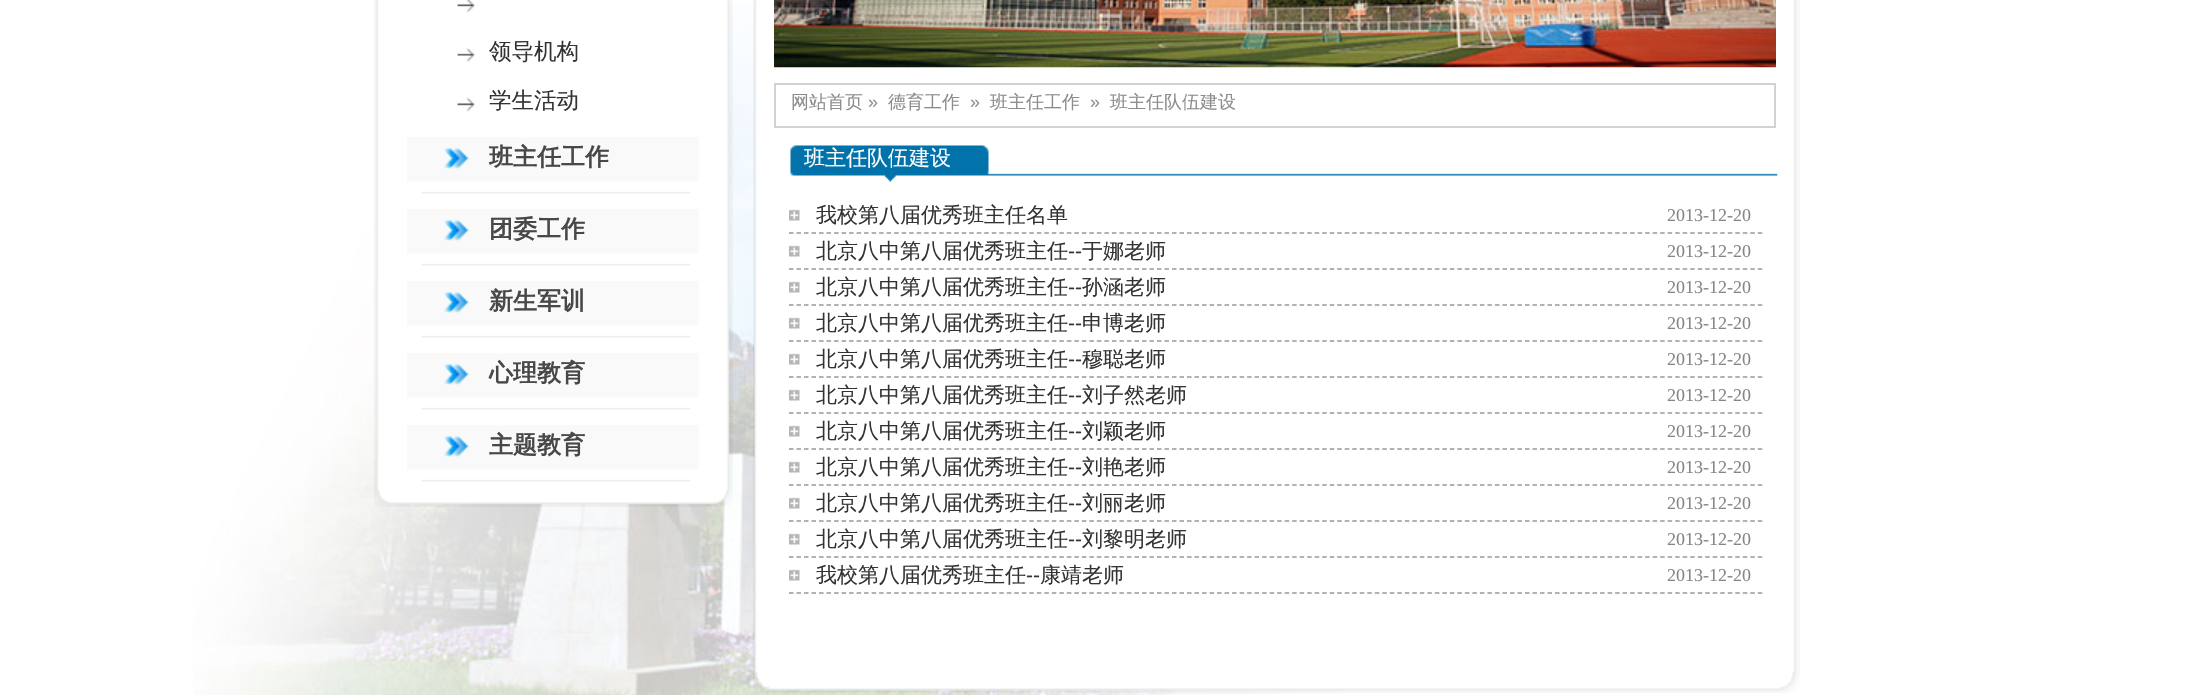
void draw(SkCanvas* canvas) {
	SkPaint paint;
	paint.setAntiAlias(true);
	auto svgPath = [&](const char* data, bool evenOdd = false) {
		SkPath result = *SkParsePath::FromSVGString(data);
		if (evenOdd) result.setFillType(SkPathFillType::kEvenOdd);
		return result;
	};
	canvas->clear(0xffffffff);
	canvas->drawImageRect(SkImages::DeferredFromEncodedData(SkData::MakeFromFileName("img1.png")), SkRect::MakeXYWH(193, 5, 1155, 690), SkSamplingOptions());
	canvas->drawImageRect(SkImages::DeferredFromEncodedData(SkData::MakeFromFileName("img2.png")), SkRect::MakeXYWH(374, 0, 359, 483), SkSamplingOptions());
	canvas->drawImageRect(SkImages::DeferredFromEncodedData(SkData::MakeFromFileName("img3.png")), SkRect::MakeXYWH(457, 0, 18, 13), SkSamplingOptions());
	canvas->drawImageRect(SkImages::DeferredFromEncodedData(SkData::MakeFromFileName("img4.png")), SkRect::MakeXYWH(457, 48, 18, 14), SkSamplingOptions());
	SkFont f1(fontMgr->matchFamilyStyle("WenQuanYi Zen Hei", SkFontStyle(500, SkFontStyle::kNormal_Width, SkFontStyle::kUpright_Slant)), 22.5);
	f1.setSubpixel(true);
	paint.setColor(0xff333333);
	canvas->drawString("领导机构", 489, 59, f1, paint);
	canvas->drawImageRect(SkImages::DeferredFromEncodedData(SkData::MakeFromFileName("img5.png")), SkRect::MakeXYWH(457, 97, 18, 15), SkSamplingOptions());
	canvas->drawString("学生活动", 489, 108, f1, paint);
	canvas->drawImageRect(SkImages::DeferredFromEncodedData(SkData::MakeFromFileName("img6.png")), SkRect::MakeXYWH(407, 137, 292, 57), SkSamplingOptions());
	SkFont f2(fontMgr->matchFamilyStyle("WenQuanYi Zen Hei", SkFontStyle::Bold()), 24);
	f2.setSubpixel(true);
	paint.setColor(0xff484848);
	canvas->drawString("班主任工作", 489, 165, f2, paint);
	canvas->drawImageRect(SkImages::DeferredFromEncodedData(SkData::MakeFromFileName("img6.png")), SkRect::MakeXYWH(407, 209, 292, 57), SkSamplingOptions());
	canvas->drawString("团委工作", 489, 237, f2, paint);
	canvas->drawImageRect(SkImages::DeferredFromEncodedData(SkData::MakeFromFileName("img6.png")), SkRect::MakeXYWH(407, 281, 292, 57), SkSamplingOptions());
	canvas->drawString("新生军训", 489, 309, f2, paint);
	canvas->drawImageRect(SkImages::DeferredFromEncodedData(SkData::MakeFromFileName("img6.png")), SkRect::MakeXYWH(407, 353, 292, 57), SkSamplingOptions());
	canvas->drawString("心理教育", 489, 381, f2, paint);
	canvas->drawImageRect(SkImages::DeferredFromEncodedData(SkData::MakeFromFileName("img6.png")), SkRect::MakeXYWH(407, 425, 292, 57), SkSamplingOptions());
	canvas->drawString("主题教育", 489, 453, f2, paint);
	canvas->drawImageRect(SkImages::DeferredFromEncodedData(SkData::MakeFromFileName("img7.png")), SkRect::MakeXYWH(374, 483, 359, 24), SkSamplingOptions());
	canvas->drawImageRect(SkImages::DeferredFromEncodedData(SkData::MakeFromFileName("img8.png")), SkRect::MakeXYWH(753, 0, 1047, 669), SkSamplingOptions());
	canvas->drawImageRect(SkImages::DeferredFromEncodedData(SkData::MakeFromFileName("img9.png")), SkRect::MakeXYWH(774, 0, 1002, 68), SkSamplingOptions());
	paint.setStroke(true);
	paint.setStrokeWidth(2);
	paint.setColor(0xffd2d2d2);
	canvas->drawRect(SkRect::MakeXYWH(775, 84, 1000, 43), paint);
	SkFont f3(fontMgr->matchFamilyStyle("WenQuanYi Zen Hei", SkFontStyle(500, SkFontStyle::kNormal_Width, SkFontStyle::kUpright_Slant)), 18);
	f3.setSubpixel(true);
	paint.setStroke(false);
	paint.setColor(0xff8c8c8c);
	canvas->drawString("网站首页", 791, 108, f3, paint);
	SkFont f4(fontMgr->matchFamilyStyle("Liberation Sans", SkFontStyle::Normal()), 18);
	f4.setSubpixel(true);
	canvas->drawString("»", 868, 108, f4, paint);
	canvas->drawString("德育工作", 888, 108, f3, paint);
	canvas->drawString("»", 970, 108, f4, paint);
	canvas->drawString("班主任工作", 990, 108, f3, paint);
	canvas->drawString("»", 1090, 108, f4, paint);
	canvas->drawString("班主任队伍建设", 1110, 108, f3, paint);
	canvas->drawImageRect(SkImages::DeferredFromEncodedData(SkData::MakeFromFileName("img10.png")), SkRect::MakeXYWH(790, 145, 988, 37), SkSamplingOptions());
	SkFont f5(fontMgr->matchFamilyStyle("WenQuanYi Zen Hei", SkFontStyle(500, SkFontStyle::kNormal_Width, SkFontStyle::kUpright_Slant)), 21);
	f5.setSubpixel(true);
	paint.setColor(0xffffffff);
	canvas->drawString("班主任队伍建设", 804, 165, f5, paint);
	paint.setStroke(true);
	paint.setStrokeWidth(1.5);
	paint.setColor(0xff999999);
	paint.setPathEffect(SkDashPathEffect::Make({{4.5f, 3.01f}}, 0));
	canvas->drawPath(svgPath("M789 233H1762.5"), paint);
	paint.setPathEffect(nullptr);
	canvas->drawImageRect(SkImages::DeferredFromEncodedData(SkData::MakeFromFileName("img11.png")), SkRect::MakeXYWH(789, 209, 11, 12), SkSamplingOptions());
	paint.setStroke(false);
	paint.setColor(0xff333333);
	canvas->drawString("我校第八届优秀班主任名单", 816, 222, f5, paint);
	SkFont f6(fontMgr->matchFamilyStyle("Liberation Serif", SkFontStyle::Normal()), 18);
	f6.setSubpixel(true);
	paint.setColor(0xff868686);
	canvas->drawString("2013-12-20", 1667, 221, f6, paint);
	paint.setStroke(true);
	paint.setColor(0xff999999);
	paint.setPathEffect(SkDashPathEffect::Make({{4.5f, 3.01f}}, 0));
	canvas->drawPath(svgPath("M789 269H1762.5"), paint);
	paint.setPathEffect(nullptr);
	canvas->drawImageRect(SkImages::DeferredFromEncodedData(SkData::MakeFromFileName("img11.png")), SkRect::MakeXYWH(789, 245, 11, 12), SkSamplingOptions());
	paint.setStroke(false);
	paint.setColor(0xff333333);
	canvas->drawString("北京八中第八届优秀班主任", 816, 258, f5, paint);
	SkFont f7(fontMgr->matchFamilyStyle("Liberation Sans", SkFontStyle::Normal()), 21);
	f7.setSubpixel(true);
	canvas->drawString("--", 1068, 258, f7, paint);
	canvas->drawString("于娜老师", 1082, 258, f5, paint);
	paint.setColor(0xff868686);
	canvas->drawString("2013-12-20", 1667, 257, f6, paint);
	paint.setStroke(true);
	paint.setColor(0xff999999);
	paint.setPathEffect(SkDashPathEffect::Make({{4.5f, 3.01f}}, 0));
	canvas->drawPath(svgPath("M789 305H1762.5"), paint);
	paint.setPathEffect(nullptr);
	canvas->drawImageRect(SkImages::DeferredFromEncodedData(SkData::MakeFromFileName("img11.png")), SkRect::MakeXYWH(789, 281, 11, 12), SkSamplingOptions());
	paint.setStroke(false);
	paint.setColor(0xff333333);
	canvas->drawString("北京八中第八届优秀班主任", 816, 294, f5, paint);
	canvas->drawString("--", 1068, 294, f7, paint);
	canvas->drawString("孙涵老师", 1082, 294, f5, paint);
	paint.setColor(0xff868686);
	canvas->drawString("2013-12-20", 1667, 293, f6, paint);
	paint.setStroke(true);
	paint.setColor(0xff999999);
	paint.setPathEffect(SkDashPathEffect::Make({{4.5f, 3.01f}}, 0));
	canvas->drawPath(svgPath("M789 341H1762.5"), paint);
	paint.setPathEffect(nullptr);
	canvas->drawImageRect(SkImages::DeferredFromEncodedData(SkData::MakeFromFileName("img11.png")), SkRect::MakeXYWH(789, 317, 11, 12), SkSamplingOptions());
	paint.setStroke(false);
	paint.setColor(0xff333333);
	canvas->drawString("北京八中第八届优秀班主任", 816, 330, f5, paint);
	canvas->drawString("--", 1068, 330, f7, paint);
	canvas->drawString("申博老师", 1082, 330, f5, paint);
	paint.setColor(0xff868686);
	canvas->drawString("2013-12-20", 1667, 329, f6, paint);
	paint.setStroke(true);
	paint.setColor(0xff999999);
	paint.setPathEffect(SkDashPathEffect::Make({{4.5f, 3.01f}}, 0));
	canvas->drawPath(svgPath("M789 377H1762.5"), paint);
	paint.setPathEffect(nullptr);
	canvas->drawImageRect(SkImages::DeferredFromEncodedData(SkData::MakeFromFileName("img11.png")), SkRect::MakeXYWH(789, 353, 11, 12), SkSamplingOptions());
	paint.setStroke(false);
	paint.setColor(0xff333333);
	canvas->drawString("北京八中第八届优秀班主任", 816, 366, f5, paint);
	canvas->drawString("--", 1068, 366, f7, paint);
	canvas->drawString("穆聪老师", 1082, 366, f5, paint);
	paint.setColor(0xff868686);
	canvas->drawString("2013-12-20", 1667, 365, f6, paint);
	paint.setStroke(true);
	paint.setColor(0xff999999);
	paint.setPathEffect(SkDashPathEffect::Make({{4.5f, 3.01f}}, 0));
	canvas->drawPath(svgPath("M789 413H1762.5"), paint);
	paint.setPathEffect(nullptr);
	canvas->drawImageRect(SkImages::DeferredFromEncodedData(SkData::MakeFromFileName("img11.png")), SkRect::MakeXYWH(789, 389, 11, 12), SkSamplingOptions());
	paint.setStroke(false);
	paint.setColor(0xff333333);
	canvas->drawString("北京八中第八届优秀班主任", 816, 402, f5, paint);
	canvas->drawString("--", 1068, 402, f7, paint);
	canvas->drawString("刘子然老师", 1082, 402, f5, paint);
	paint.setColor(0xff868686);
	canvas->drawString("2013-12-20", 1667, 401, f6, paint);
	paint.setStroke(true);
	paint.setColor(0xff999999);
	paint.setPathEffect(SkDashPathEffect::Make({{4.5f, 3.01f}}, 0));
	canvas->drawPath(svgPath("M789 449H1762.5"), paint);
	paint.setPathEffect(nullptr);
	canvas->drawImageRect(SkImages::DeferredFromEncodedData(SkData::MakeFromFileName("img11.png")), SkRect::MakeXYWH(789, 425, 11, 12), SkSamplingOptions());
	paint.setStroke(false);
	paint.setColor(0xff333333);
	canvas->drawString("北京八中第八届优秀班主任", 816, 438, f5, paint);
	canvas->drawString("--", 1068, 438, f7, paint);
	canvas->drawString("刘颖老师", 1082, 438, f5, paint);
	paint.setColor(0xff868686);
	canvas->drawString("2013-12-20", 1667, 437, f6, paint);
	paint.setStroke(true);
	paint.setColor(0xff999999);
	paint.setPathEffect(SkDashPathEffect::Make({{4.5f, 3.01f}}, 0));
	canvas->drawPath(svgPath("M789 485H1762.5"), paint);
	paint.setPathEffect(nullptr);
	canvas->drawImageRect(SkImages::DeferredFromEncodedData(SkData::MakeFromFileName("img11.png")), SkRect::MakeXYWH(789, 461, 11, 12), SkSamplingOptions());
	paint.setStroke(false);
	paint.setColor(0xff333333);
	canvas->drawString("北京八中第八届优秀班主任", 816, 474, f5, paint);
	canvas->drawString("--", 1068, 474, f7, paint);
	canvas->drawString("刘艳老师", 1082, 474, f5, paint);
	paint.setColor(0xff868686);
	canvas->drawString("2013-12-20", 1667, 473, f6, paint);
	paint.setStroke(true);
	paint.setColor(0xff999999);
	paint.setPathEffect(SkDashPathEffect::Make({{4.5f, 3.01f}}, 0));
	canvas->drawPath(svgPath("M789 521H1762.5"), paint);
	paint.setPathEffect(nullptr);
	canvas->drawImageRect(SkImages::DeferredFromEncodedData(SkData::MakeFromFileName("img11.png")), SkRect::MakeXYWH(789, 497, 11, 12), SkSamplingOptions());
	paint.setStroke(false);
	paint.setColor(0xff333333);
	canvas->drawString("北京八中第八届优秀班主任", 816, 510, f5, paint);
	canvas->drawString("--", 1068, 510, f7, paint);
	canvas->drawString("刘丽老师", 1082, 510, f5, paint);
	paint.setColor(0xff868686);
	canvas->drawString("2013-12-20", 1667, 509, f6, paint);
	paint.setStroke(true);
	paint.setColor(0xff999999);
	paint.setPathEffect(SkDashPathEffect::Make({{4.5f, 3.01f}}, 0));
	canvas->drawPath(svgPath("M789 557H1762.5"), paint);
	paint.setPathEffect(nullptr);
	canvas->drawImageRect(SkImages::DeferredFromEncodedData(SkData::MakeFromFileName("img11.png")), SkRect::MakeXYWH(789, 533, 11, 12), SkSamplingOptions());
	paint.setStroke(false);
	paint.setColor(0xff333333);
	canvas->drawString("北京八中第八届优秀班主任", 816, 546, f5, paint);
	canvas->drawString("--", 1068, 546, f7, paint);
	canvas->drawString("刘黎明老师", 1082, 546, f5, paint);
	paint.setColor(0xff868686);
	canvas->drawString("2013-12-20", 1667, 545, f6, paint);
	paint.setStroke(true);
	paint.setColor(0xff999999);
	paint.setPathEffect(SkDashPathEffect::Make({{4.5f, 3.01f}}, 0));
	canvas->drawPath(svgPath("M789 593H1762.5"), paint);
	paint.setPathEffect(nullptr);
	canvas->drawImageRect(SkImages::DeferredFromEncodedData(SkData::MakeFromFileName("img11.png")), SkRect::MakeXYWH(789, 569, 11, 12), SkSamplingOptions());
	paint.setStroke(false);
	paint.setColor(0xff333333);
	canvas->drawString("我校第八届优秀班主任", 816, 582, f5, paint);
	canvas->drawString("--", 1026, 582, f7, paint);
	canvas->drawString("康靖老师", 1040, 582, f5, paint);
	paint.setColor(0xff868686);
	canvas->drawString("2013-12-20", 1667, 581, f6, paint);
	canvas->drawImageRect(SkImages::DeferredFromEncodedData(SkData::MakeFromFileName("img12.png")), SkRect::MakeXYWH(753, 669, 1047, 24), SkSamplingOptions());
}
